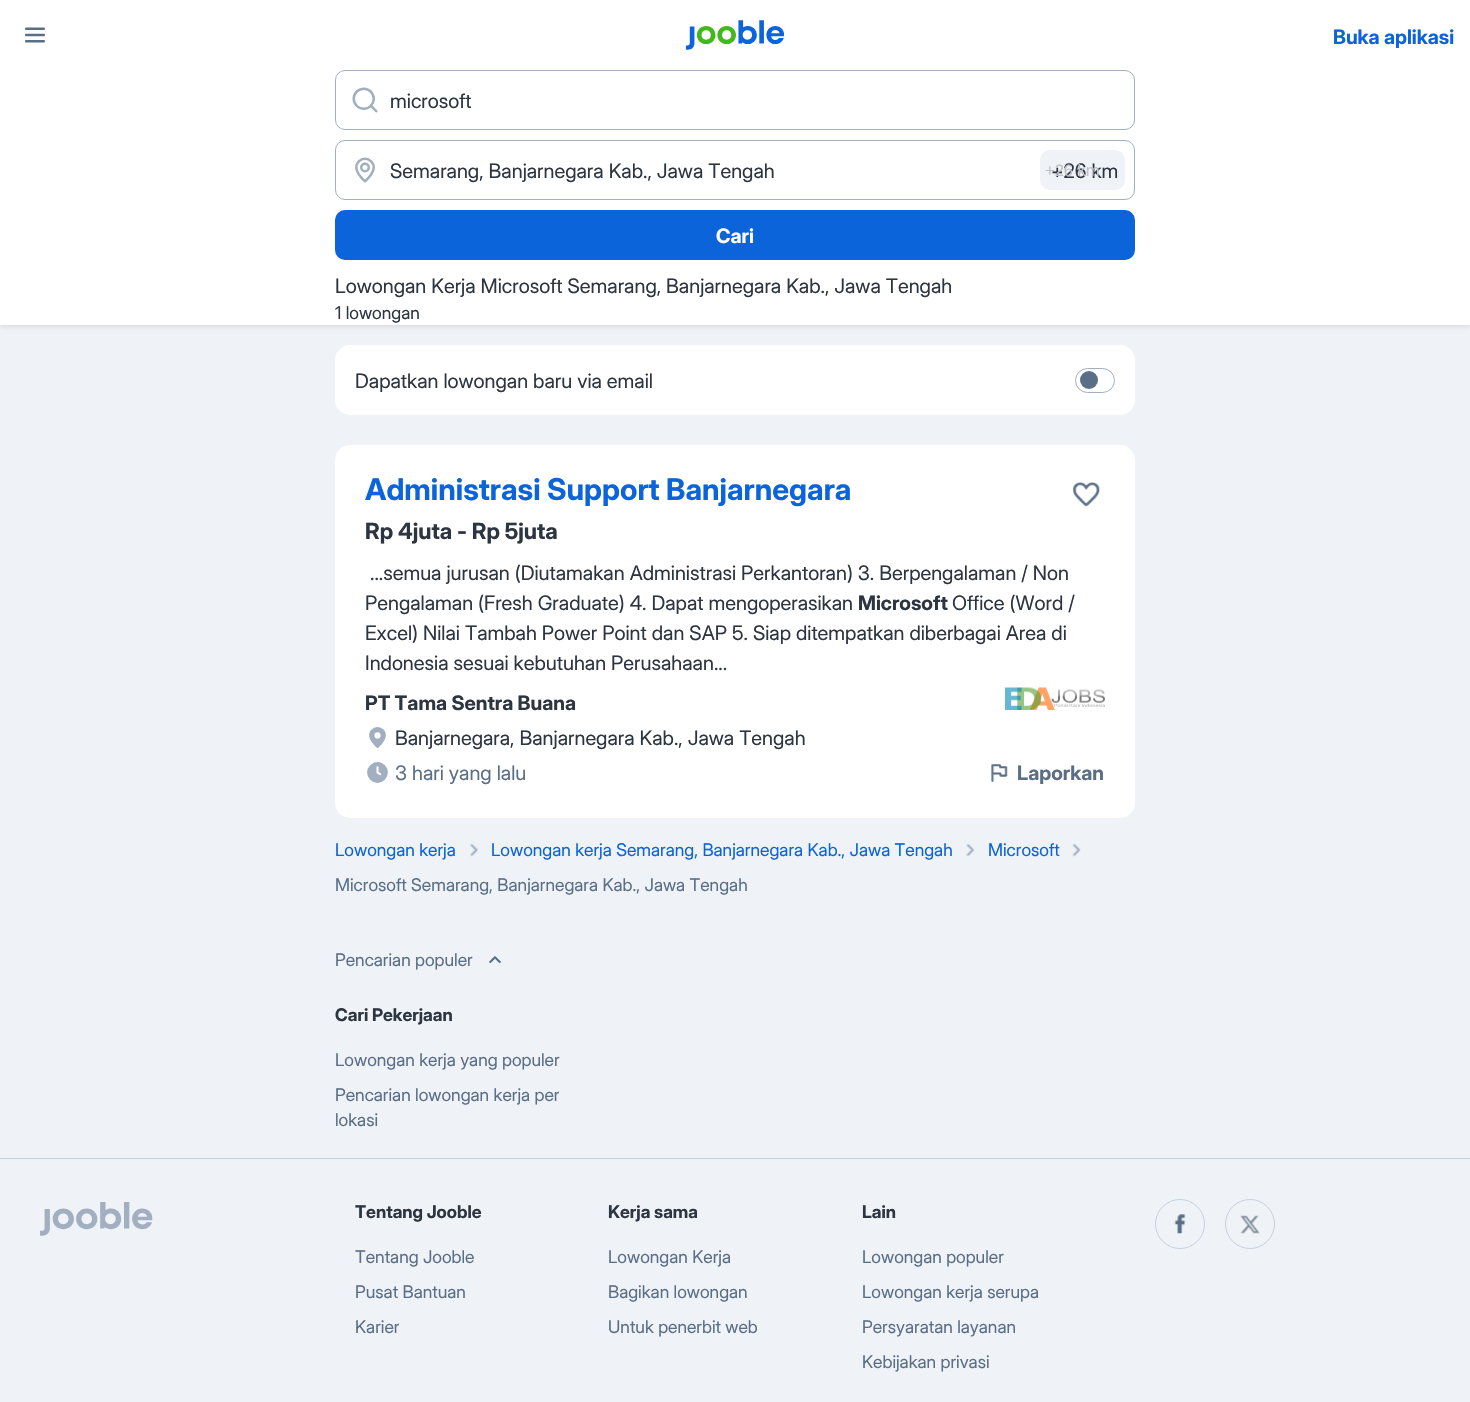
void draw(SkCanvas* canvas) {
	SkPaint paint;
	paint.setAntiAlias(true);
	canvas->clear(0xffeff2f6);
	paint.setColor(0x1f171e26);
	paint.setMaskFilter(SkMaskFilter::MakeBlur(kNormal_SkBlurStyle, 4));
	canvas->drawRect(SkRect::MakeXYWH(0, 0, 1470, 325), paint);
	paint.setMaskFilter(nullptr);
	paint.setColor(0x14171e26);
	paint.setMaskFilter(SkMaskFilter::MakeBlur(kNormal_SkBlurStyle, 2.5));
	canvas->drawRect(SkRect::MakeXYWH(0, 0, 1470, 325), paint);
	paint.setMaskFilter(nullptr);
	paint.setColor(0xffffffff);
	canvas->drawRect(SkRect::MakeXYWH(0, 0, 1470, 325), paint);
	canvas->drawImageRect(SkImages::DeferredFromEncodedData(SkData::MakeFromFileName("img1.png")), SkRect::MakeXYWH(25, 27, 20, 16), SkSamplingOptions());
	canvas->drawImageRect(SkImages::DeferredFromEncodedData(SkData::MakeFromFileName("img2.png")), SkRect::MakeXYWH(685, 20, 100, 30), SkSamplingOptions());
	SkFont f1(fontMgr->matchFamilyStyle("Inter Display", SkFontStyle::Bold()), 20);
	f1.setSubpixel(true);
	paint.setColor(0xff0b64d9);
	canvas->drawString("Buka aplikasi", 1333, 44, f1, paint);
	paint.setStroke(true);
	paint.setStrokeWidth(1);
	paint.setColor(0xffa1afc1);
	canvas->drawRoundRect(SkRect::MakeXYWH(335.5, 70.5, 799, 59), 9.5, 9.5, paint);
	canvas->drawImageRect(SkImages::DeferredFromEncodedData(SkData::MakeFromFileName("img3.png")), SkRect::MakeXYWH(352, 87, 26, 26), SkSamplingOptions());
	SkFont f2(fontMgr->matchFamilyStyle("Inter Display", SkFontStyle::Normal()), 20);
	f2.setSubpixel(true);
	paint.setStroke(false);
	paint.setColor(0xff2d3540);
	canvas->drawString("microsoft", 390, 108, f2, paint);
	paint.setStroke(true);
	paint.setColor(0xffa1afc1);
	canvas->drawRoundRect(SkRect::MakeXYWH(335.5, 140.5, 799, 59), 9.5, 9.5, paint);
	canvas->drawImageRect(SkImages::DeferredFromEncodedData(SkData::MakeFromFileName("img4.png")), SkRect::MakeXYWH(355, 157, 20, 26), SkSamplingOptions());
	paint.setStroke(false);
	paint.setColor(0xff2d3540);
	canvas->drawString("Semarang, Banjarnegara Kab., Jawa Tengah", 390, 178, f2, paint);
	paint.setColor(0xffeff2f6);
	canvas->drawRoundRect(SkRect::MakeXYWH(1040, 150, 85, 40), 10, 10, paint);
	paint.setColor(0xff2d3540);
	canvas->drawString("+26 km", 1051, 178, f2, paint);
	SkFont f3(fontMgr->matchFamilyStyle("Liberation Sans", SkFontStyle::Normal()), 16.5);
	f3.setSubpixel(true);
	paint.setColor(0xffbec2c8);
	canvas->drawString("+26 km", 1045, 176, f3, paint);
	paint.setColor(0xff0b64d9);
	canvas->drawRoundRect(SkRect::MakeXYWH(335, 210, 800, 50), 10, 10, paint);
	paint.setColor(0xffffffff);
	canvas->drawString("Cari", 716, 243, f1, paint);
	paint.setColor(0xff2d3540);
	canvas->drawString("Lowongan Kerja Microsoft Semarang, Banjarnegara Kab., Jawa Tengah", 335, 293, f2, paint);
	SkFont f4(fontMgr->matchFamilyStyle("Inter Display", SkFontStyle::Normal()), 17.5);
	f4.setSubpixel(true);
	canvas->drawString("1 lowongan", 335, 319, f4, paint);
	paint.setColor(0xffffffff);
	canvas->drawRoundRect(SkRect::MakeXYWH(335, 345, 800, 70), 15, 15, paint);
	paint.setColor(0xff2d3540);
	canvas->drawString("Dapatkan lowongan baru via email", 355, 388, f2, paint);
	paint.setStroke(true);
	paint.setColor(0xffa1afc1);
	canvas->drawRoundRect(SkRect::MakeXYWH(1075.5, 368.5, 39, 24), 12, 12, paint);
	paint.setStroke(false);
	paint.setColor(0xff5a6f87);
	canvas->drawCircle(1089, 380, 9, paint);
	paint.setColor(0xffffffff);
	canvas->drawRoundRect(SkRect::MakeXYWH(335, 445, 800, 373), 15, 15, paint);
	SkFont f5(fontMgr->matchFamilyStyle("Inter Display", SkFontStyle::Bold()), 30);
	f5.setSubpixel(true);
	paint.setColor(0xff0b64d9);
	canvas->drawString("Administrasi Support Banjarnegara", 365, 500, f5, paint);
	canvas->drawImageRect(SkImages::DeferredFromEncodedData(SkData::MakeFromFileName("img5.png")), SkRect::MakeXYWH(1072, 481, 28, 26), SkSamplingOptions());
	SkFont f6(fontMgr->matchFamilyStyle("Inter Display", SkFontStyle::Bold()), 22.5);
	f6.setSubpixel(true);
	paint.setColor(0xff2d3540);
	canvas->drawString("Rp 4juta - Rp 5juta", 365, 539, f6, paint);
	canvas->drawString("...semua jurusan (Diutamakan Administrasi Perkantoran) 3. Berpengalaman / Non", 370, 580, f2, paint);
	canvas->drawString("Pengalaman (Fresh Graduate) 4. Dapat mengoperasikan", 365, 610, f2, paint);
	canvas->drawString("Microsoft", 858, 610, f1, paint);
	canvas->drawString("Office (Word /", 952, 610, f2, paint);
	canvas->drawString("Excel) Nilai Tambah Power Point dan SAP 5. Siap ditempatkan diberbagai Area di", 365, 640, f2, paint);
	canvas->drawString("Indonesia sesuai kebutuhan Perusahaan...", 365, 670, f2, paint);
	canvas->drawString("PT Tama Sentra Buana", 365, 710, f1, paint);
	canvas->drawImageRect(SkImages::DeferredFromEncodedData(SkData::MakeFromFileName("img6.png")), SkRect::MakeXYWH(369, 727, 17, 21), SkSamplingOptions());
	canvas->drawString("Banjarnegara, Banjarnegara Kab., Jawa Tengah", 395, 745, f2, paint);
	canvas->drawImageRect(SkImages::DeferredFromEncodedData(SkData::MakeFromFileName("img7.png")), SkRect::MakeXYWH(367, 762, 21, 21), SkSamplingOptions());
	paint.setColor(0xff5a6f87);
	canvas->drawString("3 hari yang lalu", 395, 780, f2, paint);
	canvas->drawImageRect(SkImages::DeferredFromEncodedData(SkData::MakeFromFileName("img8.png")), SkRect::MakeXYWH(1005, 687, 100, 23), SkSamplingOptions());
	canvas->drawImageRect(SkImages::DeferredFromEncodedData(SkData::MakeFromFileName("img9.png")), SkRect::MakeXYWH(991, 764, 17, 18), SkSamplingOptions());
	canvas->drawString("Laporkan", 1017, 780, f1, paint);
	paint.setColor(0xff0b64d9);
	canvas->drawString("Lowongan kerja", 335, 856, f4, paint);
	canvas->drawImageRect(SkImages::DeferredFromEncodedData(SkData::MakeFromFileName("img10.png")), SkRect::MakeXYWH(470, 843, 8, 14), SkSamplingOptions());
	canvas->drawString("Lowongan kerja Semarang, Banjarnegara Kab., Jawa Tengah", 491, 856, f4, paint);
	canvas->drawImageRect(SkImages::DeferredFromEncodedData(SkData::MakeFromFileName("img11.png")), SkRect::MakeXYWH(966, 843, 9, 14), SkSamplingOptions());
	canvas->drawString("Microsoft", 988, 856, f4, paint);
	canvas->drawImageRect(SkImages::DeferredFromEncodedData(SkData::MakeFromFileName("img12.png")), SkRect::MakeXYWH(1072, 843, 9, 14), SkSamplingOptions());
	paint.setColor(0xff5a6f87);
	canvas->drawString("Microsoft Semarang, Banjarnegara Kab., Jawa Tengah", 335, 891, f4, paint);
	canvas->drawString("Pencarian populer", 335, 966, f4, paint);
	canvas->drawImageRect(SkImages::DeferredFromEncodedData(SkData::MakeFromFileName("img13.png")), SkRect::MakeXYWH(489, 956, 12, 8), SkSamplingOptions());
	SkFont f7(fontMgr->matchFamilyStyle("Inter Display", SkFontStyle::Bold()), 17.5);
	f7.setSubpixel(true);
	paint.setColor(0xff2d3540);
	canvas->drawString("Cari Pekerjaan", 335, 1021, f7, paint);
	paint.setColor(0xff5a6f87);
	canvas->drawString("Lowongan kerja yang populer", 335, 1066, f4, paint);
	canvas->drawString("Pencarian lowongan kerja per", 335, 1101, f4, paint);
	canvas->drawString("lokasi", 335, 1126, f4, paint);
	paint.setColor(0xffc5d0de);
	canvas->drawRect(SkRect::MakeXYWH(0, 1158, 1470, 1), paint);
	canvas->drawImageRect(SkImages::DeferredFromEncodedData(SkData::MakeFromFileName("img14.png")), SkRect::MakeXYWH(40, 1202, 113, 34), SkSamplingOptions());
	paint.setColor(0xff2d3540);
	canvas->drawString("Tentang Jooble", 355, 1218, f7, paint);
	paint.setColor(0xff5a6f87);
	canvas->drawString("Tentang Jooble", 355, 1263, f4, paint);
	canvas->drawString("Pusat Bantuan", 355, 1298, f4, paint);
	canvas->drawString("Karier", 355, 1333, f4, paint);
	paint.setColor(0xff2d3540);
	canvas->drawString("Kerja sama", 608, 1218, f7, paint);
	paint.setColor(0xff5a6f87);
	canvas->drawString("Lowongan Kerja", 608, 1263, f4, paint);
	canvas->drawString("Bagikan lowongan", 608, 1298, f4, paint);
	canvas->drawString("Untuk penerbit web", 608, 1333, f4, paint);
	paint.setColor(0xff2d3540);
	canvas->drawString("Lain", 862, 1218, f7, paint);
	paint.setColor(0xff5a6f87);
	canvas->drawString("Lowongan populer", 862, 1263, f4, paint);
	canvas->drawString("Lowongan kerja serupa", 862, 1298, f4, paint);
	canvas->drawString("Persyaratan layanan", 862, 1333, f4, paint);
	canvas->drawString("Kebijakan privasi", 862, 1368, f4, paint);
	paint.setStroke(true);
	paint.setColor(0xffc5d0de);
	canvas->drawCircle(1180, 1224, 24.5, paint);
	canvas->drawImageRect(SkImages::DeferredFromEncodedData(SkData::MakeFromFileName("img15.png")), SkRect::MakeXYWH(1174, 1214, 12, 20), SkSamplingOptions());
	canvas->drawCircle(1250, 1224, 24.5, paint);
	canvas->drawImageRect(SkImages::DeferredFromEncodedData(SkData::MakeFromFileName("img16.png")), SkRect::MakeXYWH(1240, 1215, 20, 19), SkSamplingOptions());
}
